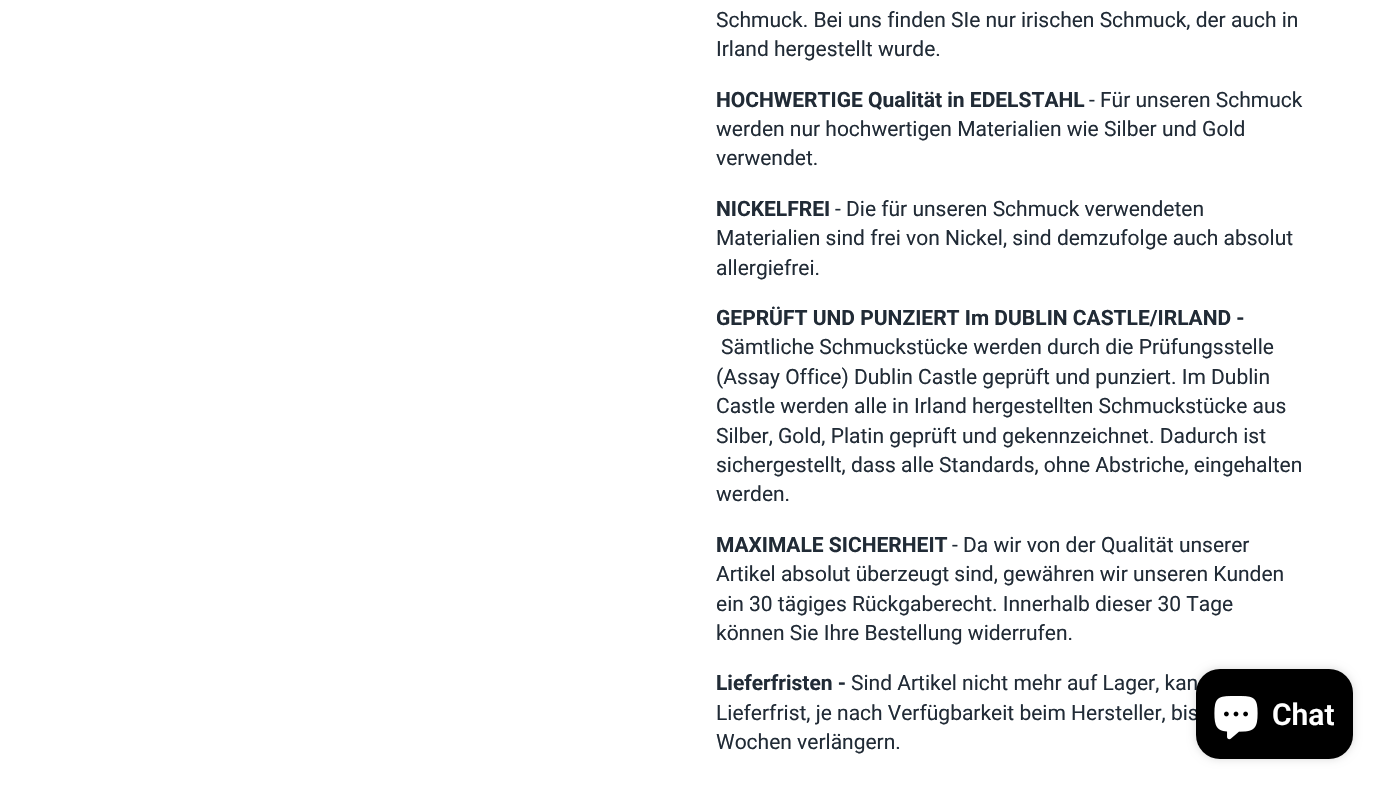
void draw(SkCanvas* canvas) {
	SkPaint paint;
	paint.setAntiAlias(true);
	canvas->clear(0xffffffff);
	SkFont f1(fontMgr->matchFamilyStyle("Roboto", SkFontStyle::Normal()), 21);
	f1.setSubpixel(true);
	paint.setColor(0xff212b36);
	canvas->drawString("Schmuck. Bei uns finden SIe nur irischen Schmuck, der auch in", 716, 27, f1, paint);
	canvas->drawString("Irland hergestellt wurde.", 716, 56, f1, paint);
	SkFont f2(fontMgr->matchFamilyStyle("Roboto", SkFontStyle::Bold()), 21);
	f2.setSubpixel(true);
	canvas->drawString("HOCHWERTIGE Qualität in EDELSTAHL", 716, 107, f2, paint);
	canvas->drawString("- Für unseren Schmuck", 1089, 107, f1, paint);
	canvas->drawString("werden nur hochwertigen Materialien wie Silber und Gold", 716, 136, f1, paint);
	canvas->drawString("verwendet.", 716, 165, f1, paint);
	canvas->drawString("NICKELFREI", 716, 216, f2, paint);
	canvas->drawString("- Die für unseren Schmuck verwendeten", 835, 216, f1, paint);
	canvas->drawString("Materialien sind frei von Nickel, sind demzufolge auch absolut", 716, 245, f1, paint);
	canvas->drawString("allergiefrei.", 716, 275, f1, paint);
	canvas->drawString("GEPRÜFT UND PUNZIERT Im DUBLIN CASTLE/IRLAND -", 716, 325, f2, paint);
	canvas->drawString("Sämtliche Schmuckstücke werden durch die Prüfungsstelle", 721, 354, f1, paint);
	canvas->drawString("(Assay Office) Dublin Castle geprüft und punziert. Im Dublin", 716, 384, f1, paint);
	canvas->drawString("Castle werden alle in Irland hergestellten Schmuckstücke aus", 716, 413, f1, paint);
	canvas->drawString("Silber, Gold, Platin geprüft und gekennzeichnet. Dadurch ist", 716, 443, f1, paint);
	canvas->drawString("sichergestellt, dass alle Standards, ohne Abstriche, eingehalten", 716, 472, f1, paint);
	canvas->drawString("werden.", 716, 501, f1, paint);
	canvas->drawString("MAXIMALE SICHERHEIT", 716, 552, f2, paint);
	canvas->drawString("- Da wir von der Qualität unserer", 952, 552, f1, paint);
	canvas->drawString("Artikel absolut überzeugt sind, gewähren wir unseren Kunden", 716, 581, f1, paint);
	canvas->drawString("ein 30 tägiges Rückgaberecht. Innerhalb dieser 30 Tage", 716, 611, f1, paint);
	canvas->drawString("können Sie Ihre Bestellung widerrufen.", 716, 640, f1, paint);
	canvas->drawString("Lieferfristen -", 716, 690, f2, paint);
	canvas->drawString("Sind Artikel nicht mehr auf Lager, kan", 851, 690, f1, paint);
	canvas->drawString("Lieferfrist, je nach Verfügbarkeit beim Hersteller, bis", 716, 720, f1, paint);
	canvas->drawString("Wochen verlängern.", 716, 749, f1, paint);
	paint.setColor(0x26000000);
	paint.setMaskFilter(SkMaskFilter::MakeBlur(kNormal_SkBlurStyle, 4));
	canvas->drawRoundRect(SkRect::MakeXYWH(1196, 669, 157, 90), 24, 24, paint);
	paint.setMaskFilter(nullptr);
	paint.setColor(0xff000000);
	canvas->drawRoundRect(SkRect::MakeXYWH(1196, 669, 157, 90), 24, 24, paint);
	canvas->drawImageRect(SkImages::DeferredFromEncodedData(SkData::MakeFromFileName("img1.png")), SkRect::MakeXYWH(1214, 696, 44, 44), SkSamplingOptions());
	SkFont f3(fontMgr->matchFamilyStyle("Roboto", SkFontStyle(600, SkFontStyle::kNormal_Width, SkFontStyle::kUpright_Slant)), 30);
	f3.setSubpixel(true);
	paint.setColor(0xffffffff);
	canvas->drawString("Chat", 1272, 725, f3, paint);
}
